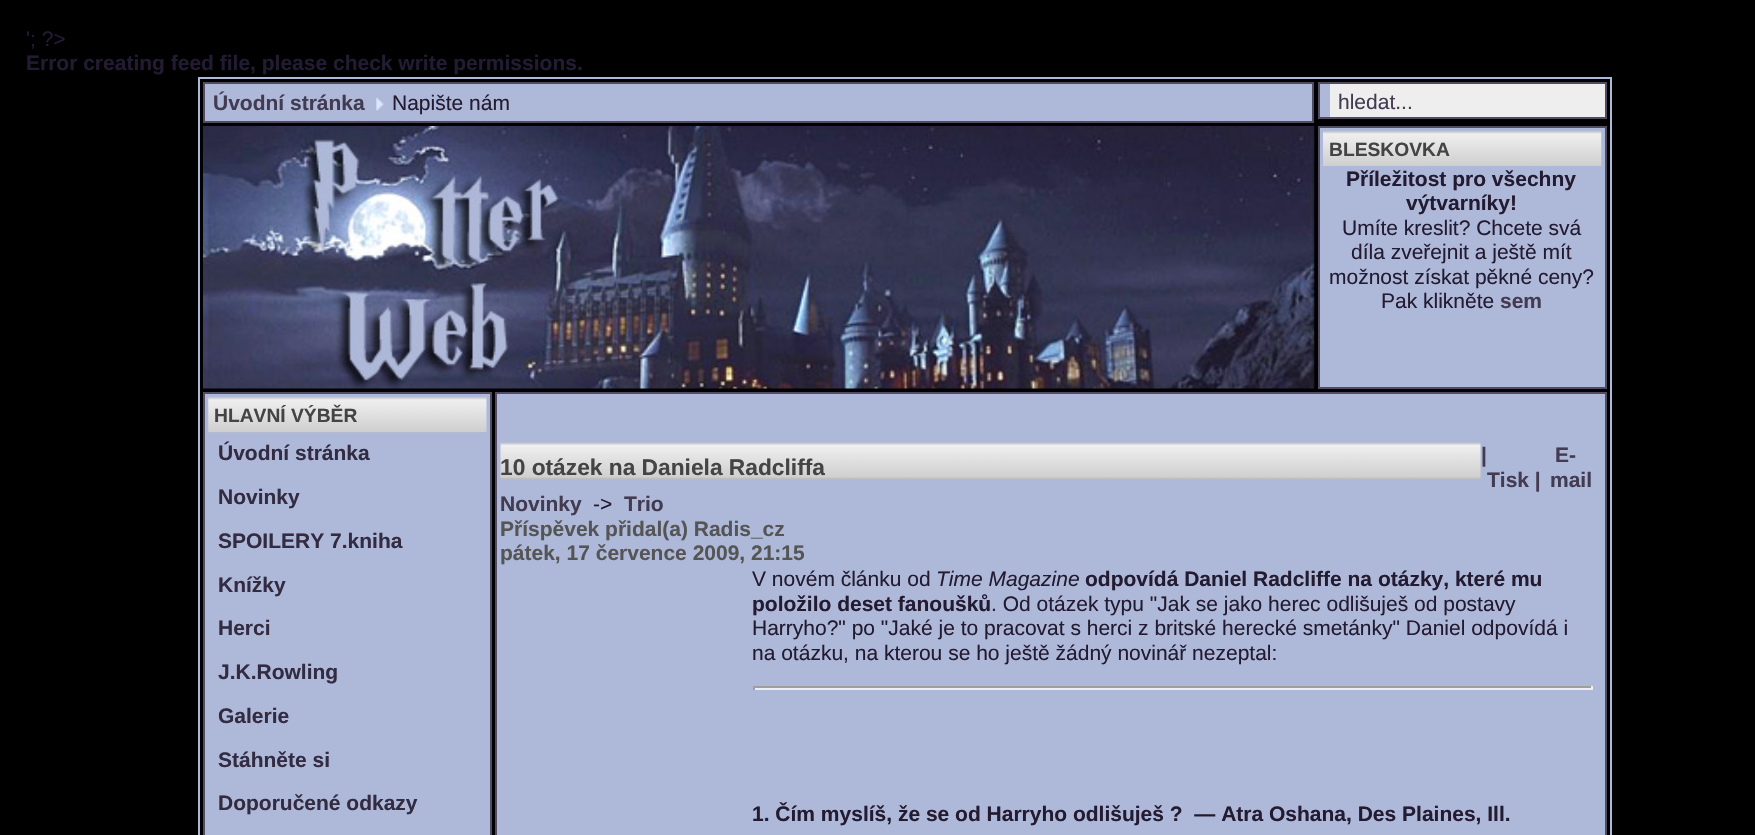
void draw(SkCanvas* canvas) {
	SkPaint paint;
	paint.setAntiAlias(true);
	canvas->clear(0xff000000);
	SkFont f1(fontMgr->matchFamilyStyle("Liberation Sans", SkFontStyle::Normal()), 21);
	f1.setSubpixel(true);
	paint.setColor(0xff231b31);
	canvas->drawString("'; ?>", 26, 46, f1, paint);
	SkFont f2(fontMgr->matchFamilyStyle("Liberation Sans", SkFontStyle::Bold()), 21);
	f2.setSubpixel(true);
	canvas->drawString("Error creating feed file, please check write permissions.", 26, 70, f2, paint);
	paint.setStroke(true);
	paint.setStrokeWidth(2);
	paint.setColor(0xffaeb8d8);
	canvas->drawRect(SkRect::MakeXYWH(199, 78, 1412, 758), paint);
	paint.setStroke(false);
	canvas->drawRect(SkRect::MakeXYWH(204, 83, 1109, 39), paint);
	paint.setStroke(true);
	paint.setColor(0xff534b61);
	canvas->drawRect(SkRect::MakeXYWH(204, 83, 1109, 39), paint);
	paint.setStroke(false);
	paint.setColor(0xff433b51);
	canvas->drawString("Úvodní stránka", 213, 110, f2, paint);
	canvas->drawImageRect(SkImages::DeferredFromEncodedData(SkData::MakeFromFileName("img1.png")), SkRect::MakeXYWH(376, 97, 8, 14), SkSamplingOptions());
	paint.setColor(0xff231b31);
	canvas->drawString("Napište nám", 392, 110, f1, paint);
	paint.setColor(0xffaeb8d8);
	canvas->drawRect(SkRect::MakeXYWH(1320, 84, 10, 33), paint);
	paint.setStroke(true);
	paint.setColor(0xff534b61);
	canvas->drawRect(SkRect::MakeXYWH(1319, 83, 287, 35), paint);
	paint.setStroke(false);
	paint.setColor(0xffeeeeee);
	canvas->drawRect(SkRect::MakeXYWH(1330, 84, 275, 33), paint);
	paint.setColor(0xff433b51);
	canvas->drawString("hledat...", 1338, 109, f1, paint);
	canvas->drawImageRect(SkImages::DeferredFromEncodedData(SkData::MakeFromFileName("img2.png")), SkRect::MakeXYWH(203, 126, 1112, 263), SkSamplingOptions());
	paint.setColor(0xffaeb8d8);
	canvas->drawRect(SkRect::MakeXYWH(1319, 127, 287, 261), paint);
	paint.setStroke(true);
	paint.setColor(0xff534b61);
	canvas->drawRect(SkRect::MakeXYWH(1319, 127, 287, 261), paint);
	canvas->drawImageRect(SkImages::DeferredFromEncodedData(SkData::MakeFromFileName("img3.png")), SkRect::MakeXYWH(1323, 131, 279, 36), SkSamplingOptions());
	SkFont f3(fontMgr->matchFamilyStyle("Liberation Sans", SkFontStyle::Bold()), 19.25);
	f3.setSubpixel(true);
	paint.setStroke(false);
	paint.setColor(0xff444444);
	canvas->drawString("BLESKOVKA", 1329, 156, f3, paint);
	paint.setColor(0xffaeb8d8);
	canvas->drawRect(SkRect::MakeXYWH(1323, 166, 278, 1), paint);
	paint.setColor(0xff231b31);
	canvas->drawString("Příležitost pro všechny", 1346, 186, f2, paint);
	canvas->drawString("výtvarníky!", 1406, 210, f2, paint);
	canvas->drawString("Umíte kreslit? Chcete svá", 1342, 235, f1, paint);
	canvas->drawString("díla zveřejnit a ještě mít", 1351, 259, f1, paint);
	canvas->drawString("možnost získat pěkné ceny?", 1329, 284, f1, paint);
	canvas->drawString("Pak klikněte", 1381, 308, f1, paint);
	paint.setColor(0xff433b51);
	canvas->drawString("sem", 1500, 308, f2, paint);
	paint.setColor(0xffaeb8d8);
	canvas->drawRect(SkRect::MakeXYWH(204, 393, 287, 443), paint);
	paint.setStroke(true);
	paint.setColor(0xff534b61);
	canvas->drawRect(SkRect::MakeXYWH(204, 393, 287, 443), paint);
	canvas->drawImageRect(SkImages::DeferredFromEncodedData(SkData::MakeFromFileName("img4.png")), SkRect::MakeXYWH(208, 397, 279, 36), SkSamplingOptions());
	paint.setStroke(false);
	paint.setColor(0xff444444);
	canvas->drawString("HLAVNÍ VÝBĚR", 214, 422, f3, paint);
	paint.setColor(0xff332b41);
	canvas->drawString("Úvodní stránka", 218, 460, f2, paint);
	canvas->drawString("Novinky", 218, 504, f2, paint);
	canvas->drawString("SPOILERY 7.kniha", 218, 548, f2, paint);
	canvas->drawString("Knížky", 218, 592, f2, paint);
	canvas->drawString("Herci", 218, 635, f2, paint);
	canvas->drawString("J.K.Rowling", 218, 679, f2, paint);
	canvas->drawString("Galerie", 218, 723, f2, paint);
	canvas->drawString("Stáhněte si", 218, 767, f2, paint);
	canvas->drawString("Doporučené odkazy", 218, 810, f2, paint);
	paint.setColor(0xffaeb8d8);
	canvas->drawRect(SkRect::MakeXYWH(496, 393, 1110, 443), paint);
	paint.setStroke(true);
	paint.setColor(0xff534b61);
	canvas->drawRect(SkRect::MakeXYWH(496, 393, 1110, 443), paint);
	canvas->drawImageRect(SkImages::DeferredFromEncodedData(SkData::MakeFromFileName("img5.png")), SkRect::MakeXYWH(500, 442, 981, 38), SkSamplingOptions());
	SkFont f4(fontMgr->matchFamilyStyle("Liberation Sans", SkFontStyle::Bold()), 22.75);
	f4.setSubpixel(true);
	paint.setStroke(false);
	paint.setColor(0xff444444);
	canvas->drawString("10 otázek na Daniela Radcliffa", 500, 475, f4, paint);
	paint.setColor(0xff433b51);
	canvas->drawString("|", 1481, 462, f2, paint);
	canvas->drawString("Tisk |", 1487, 487, f2, paint);
	canvas->drawString("E-", 1555, 462, f2, paint);
	canvas->drawString("mail", 1550, 487, f2, paint);
	canvas->drawString("Novinky", 500, 511, f2, paint);
	paint.setColor(0xff231b31);
	canvas->drawString("->", 593, 511, f1, paint);
	paint.setColor(0xff433b51);
	canvas->drawString("Trio", 624, 511, f2, paint);
	paint.setColor(0xff555555);
	canvas->drawString("Příspěvek přidal(a) Radis_cz", 500, 536, f2, paint);
	canvas->drawString("pátek, 17 července 2009, 21:15", 500, 560, f2, paint);
	paint.setColor(0xff231b31);
	canvas->drawString("V novém článku od", 752, 586, f1, paint);
	SkFont f5(fontMgr->matchFamilyStyle("Liberation Sans", SkFontStyle::Italic()), 21);
	f5.setSubpixel(true);
	canvas->drawString("Time Magazine", 936, 586, f5, paint);
	canvas->drawString("odpovídá Daniel Radcliffe na otázky, které mu", 1085, 586, f2, paint);
	canvas->drawString("položilo deset fanoušků", 752, 611, f2, paint);
	canvas->drawString(". Od otázek typu \"Jak se jako herec odlišuješ od postavy", 991, 611, f1, paint);
	canvas->drawString("Harryho?\" po \"Jaké je to pracovat s herci z britské herecké smetánky\" Daniel odpovídá i", 752, 635, f1, paint);
	canvas->drawString("na otázku, na kterou se ho ještě žádný novinář nezeptal:", 752, 660, f1, paint);
	paint.setColor(0xff9f9f9f);
	canvas->drawRect(SkRect::MakeXYWH(753, 686, 840, 2), paint);
	paint.setColor(0xffeeeeee);
	canvas->drawRect(SkRect::MakeXYWH(1591, 686, 2, 4), paint);
	canvas->drawRect(SkRect::MakeXYWH(753, 688, 840, 2), paint);
	paint.setColor(0xff9f9f9f);
	canvas->drawRect(SkRect::MakeXYWH(753, 686, 2, 4), paint);
	paint.setColor(0xff231b31);
	canvas->drawString("1. Čím myslíš, že se od Harryho odlišuješ ?  — Atra Oshana, Des Plaines, Ill.", 752, 821, f2, paint);
}
